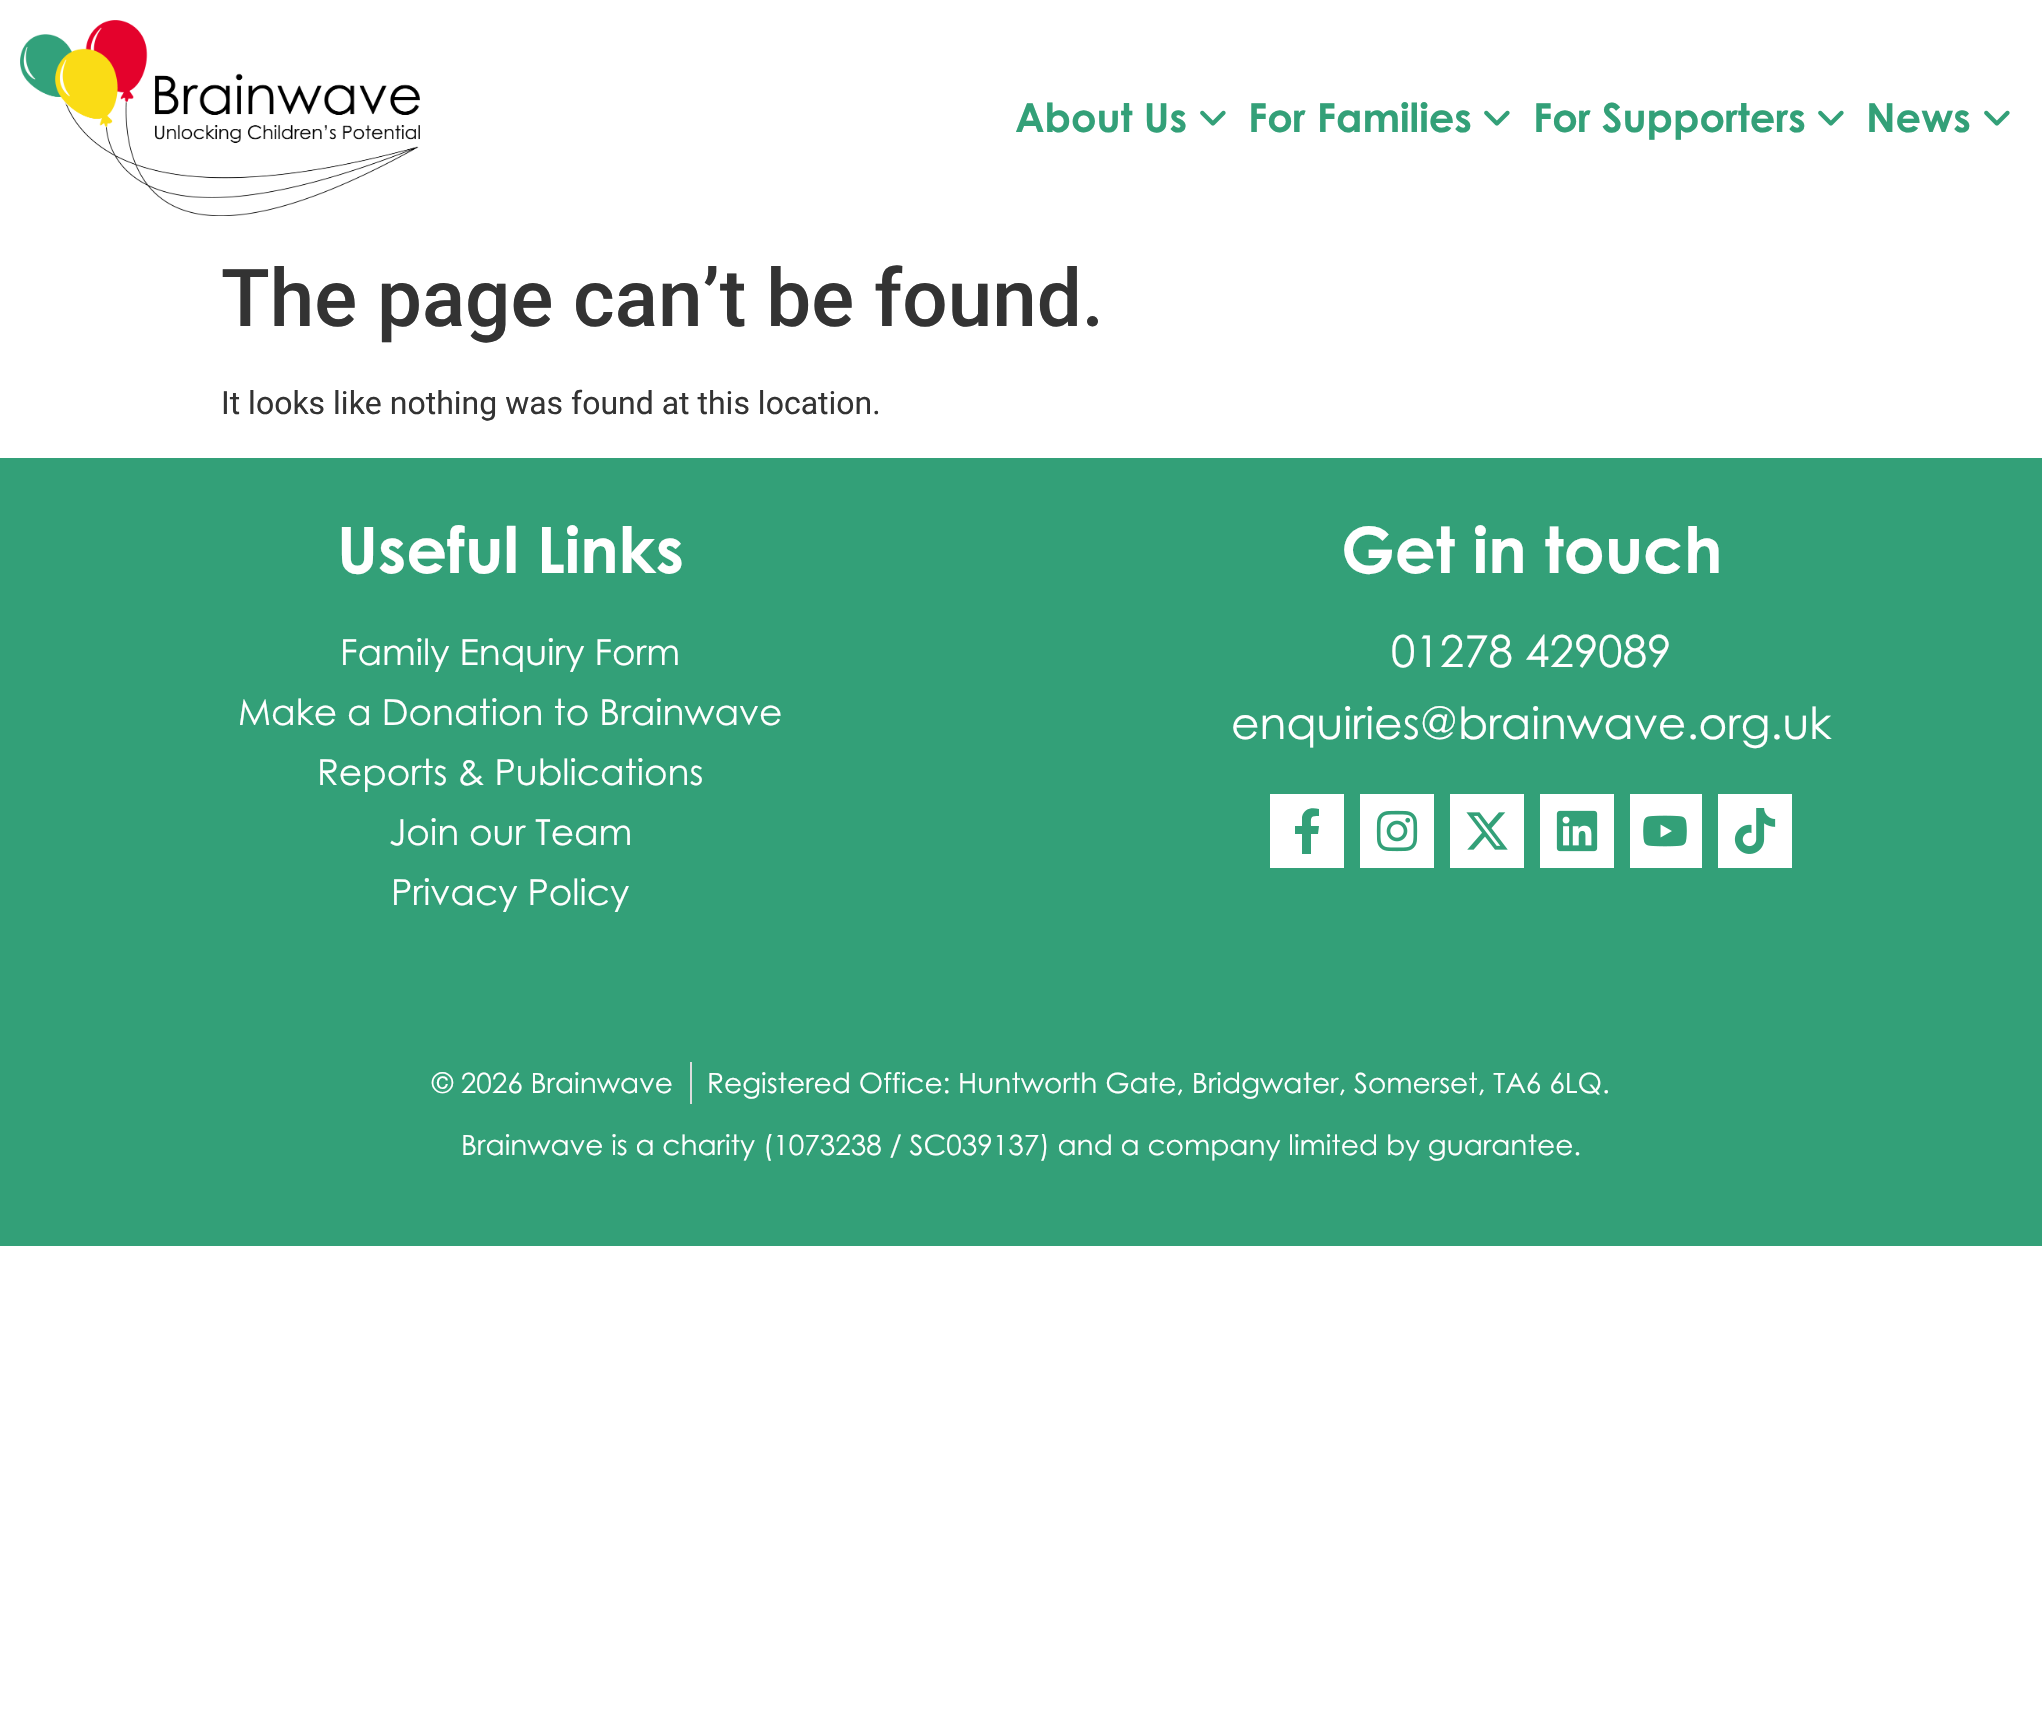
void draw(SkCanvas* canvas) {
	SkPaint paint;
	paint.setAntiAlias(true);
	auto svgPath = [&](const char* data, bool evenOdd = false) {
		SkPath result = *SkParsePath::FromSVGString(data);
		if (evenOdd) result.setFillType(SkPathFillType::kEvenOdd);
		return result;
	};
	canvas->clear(0xffffffff);
	canvas->drawImageRect(SkImages::DeferredFromEncodedData(SkData::MakeFromFileName("img1.png")), SkRect::MakeXYWH(20, 20, 400, 196), SkSamplingOptions());
	SkFont f1(fontMgr->matchFamilyStyle("Century Gothic", SkFontStyle::Bold()), 40);
	f1.setSubpixel(true);
	paint.setColor(0xff33a078);
	canvas->drawString("About Us", 1015, 132, f1, paint);
	canvas->drawImageRect(SkImages::DeferredFromEncodedData(SkData::MakeFromFileName("img2.png")), SkRect::MakeXYWH(1200, 110, 26, 16), SkSamplingOptions());
	canvas->drawString("For Families", 1248, 132, f1, paint);
	canvas->drawImageRect(SkImages::DeferredFromEncodedData(SkData::MakeFromFileName("img2.png")), SkRect::MakeXYWH(1484, 110, 26, 16), SkSamplingOptions());
	canvas->drawString("For Supporters", 1533, 132, f1, paint);
	canvas->drawImageRect(SkImages::DeferredFromEncodedData(SkData::MakeFromFileName("img2.png")), SkRect::MakeXYWH(1818, 110, 26, 16), SkSamplingOptions());
	canvas->drawString("News", 1866, 132, f1, paint);
	canvas->drawImageRect(SkImages::DeferredFromEncodedData(SkData::MakeFromFileName("img2.png")), SkRect::MakeXYWH(1984, 110, 26, 16), SkSamplingOptions());
	SkFont f2(fontMgr->matchFamilyStyle("Roboto", SkFontStyle(500, SkFontStyle::kNormal_Width, SkFontStyle::kUpright_Slant)), 80);
	f2.setSubpixel(true);
	paint.setColor(0xff333333);
	canvas->drawString("The page can’t be found.", 221, 326, f2, paint);
	SkFont f3(fontMgr->matchFamilyStyle("Roboto", SkFontStyle::Normal()), 32);
	f3.setSubpixel(true);
	canvas->drawString("It looks like nothing was found at this location.", 221, 414, f3, paint);
	paint.setColor(0xff33a078);
	canvas->drawRect(SkRect::MakeXYWH(0, 458, 2042, 788), paint);
	SkFont f4(fontMgr->matchFamilyStyle("Century Gothic", SkFontStyle::Bold()), 64);
	f4.setSubpixel(true);
	paint.setColor(0xffffffff);
	canvas->drawString("Useful Links", 337, 573, f4, paint);
	SkFont f5(fontMgr->matchFamilyStyle("Century Gothic", SkFontStyle::Normal()), 36);
	f5.setSubpixel(true);
	canvas->drawString("Family Enquiry Form", 340, 665, f5, paint);
	canvas->drawString("Make a Donation to Brainwave", 238, 725, f5, paint);
	canvas->drawString("Reports & Publications", 317, 785, f5, paint);
	canvas->drawString("Join our Team", 389, 845, f5, paint);
	canvas->drawString("Privacy Policy", 391, 905, f5, paint);
	canvas->drawString("Get in touch", 1341, 573, f4, paint);
	SkFont f6(fontMgr->matchFamilyStyle("Century Gothic", SkFontStyle::Normal()), 44);
	f6.setSubpixel(true);
	canvas->drawString("01278 429089", 1391, 667, f6, paint);
	canvas->drawString("enquiries@brainwave.org.uk", 1231, 739, f6, paint);
	canvas->drawRect(SkRect::MakeXYWH(1270, 794, 74, 74), paint);
	paint.setColor(0xff33a078);
	canvas->drawPath(svgPath("M1318 834L1319 826H1311C1311 817 1310 816 1319 816V809C1312 807 1304 808 1302 817V826H1295V834H1302V854H1311V834Z"), paint);
	paint.setColor(0xffffffff);
	canvas->drawRect(SkRect::MakeXYWH(1360, 794, 74, 74), paint);
	canvas->drawImageRect(SkImages::DeferredFromEncodedData(SkData::MakeFromFileName("img3.png")), SkRect::MakeXYWH(1376, 810, 42, 42), SkSamplingOptions());
	canvas->drawRect(SkRect::MakeXYWH(1450, 794, 74, 74), paint);
	canvas->drawImageRect(SkImages::DeferredFromEncodedData(SkData::MakeFromFileName("img4.png")), SkRect::MakeXYWH(1466, 812, 42, 38), SkSamplingOptions());
	canvas->drawRect(SkRect::MakeXYWH(1540, 794, 74, 74), paint);
	canvas->drawImageRect(SkImages::DeferredFromEncodedData(SkData::MakeFromFileName("img5.png")), SkRect::MakeXYWH(1556, 810, 42, 42), SkSamplingOptions());
	canvas->drawRect(SkRect::MakeXYWH(1630, 794, 72, 74), paint);
	canvas->drawImageRect(SkImages::DeferredFromEncodedData(SkData::MakeFromFileName("img6.png")), SkRect::MakeXYWH(1643, 815, 44, 32), SkSamplingOptions());
	canvas->drawRect(SkRect::MakeXYWH(1718, 794, 74, 74), paint);
	canvas->drawImageRect(SkImages::DeferredFromEncodedData(SkData::MakeFromFileName("img7.png")), SkRect::MakeXYWH(1734, 808, 42, 46), SkSamplingOptions());
	SkFont f7(fontMgr->matchFamilyStyle("Century Gothic", SkFontStyle::Normal()), 28);
	f7.setSubpixel(true);
	canvas->drawString("© 2026 Brainwave", 432, 1093, f7, paint);
	paint.setColor(0xffdddddd);
	canvas->drawRect(SkRect::MakeXYWH(690, 1062, 2, 42), paint);
	paint.setColor(0xffffffff);
	canvas->drawString("Registered Office: Huntworth Gate, Bridgwater, Somerset, TA6 6LQ.", 707, 1093, f7, paint);
	canvas->drawString("Brainwave is a charity (1073238 / SC039137) and a company limited by guarantee.", 461, 1155, f7, paint);
}
